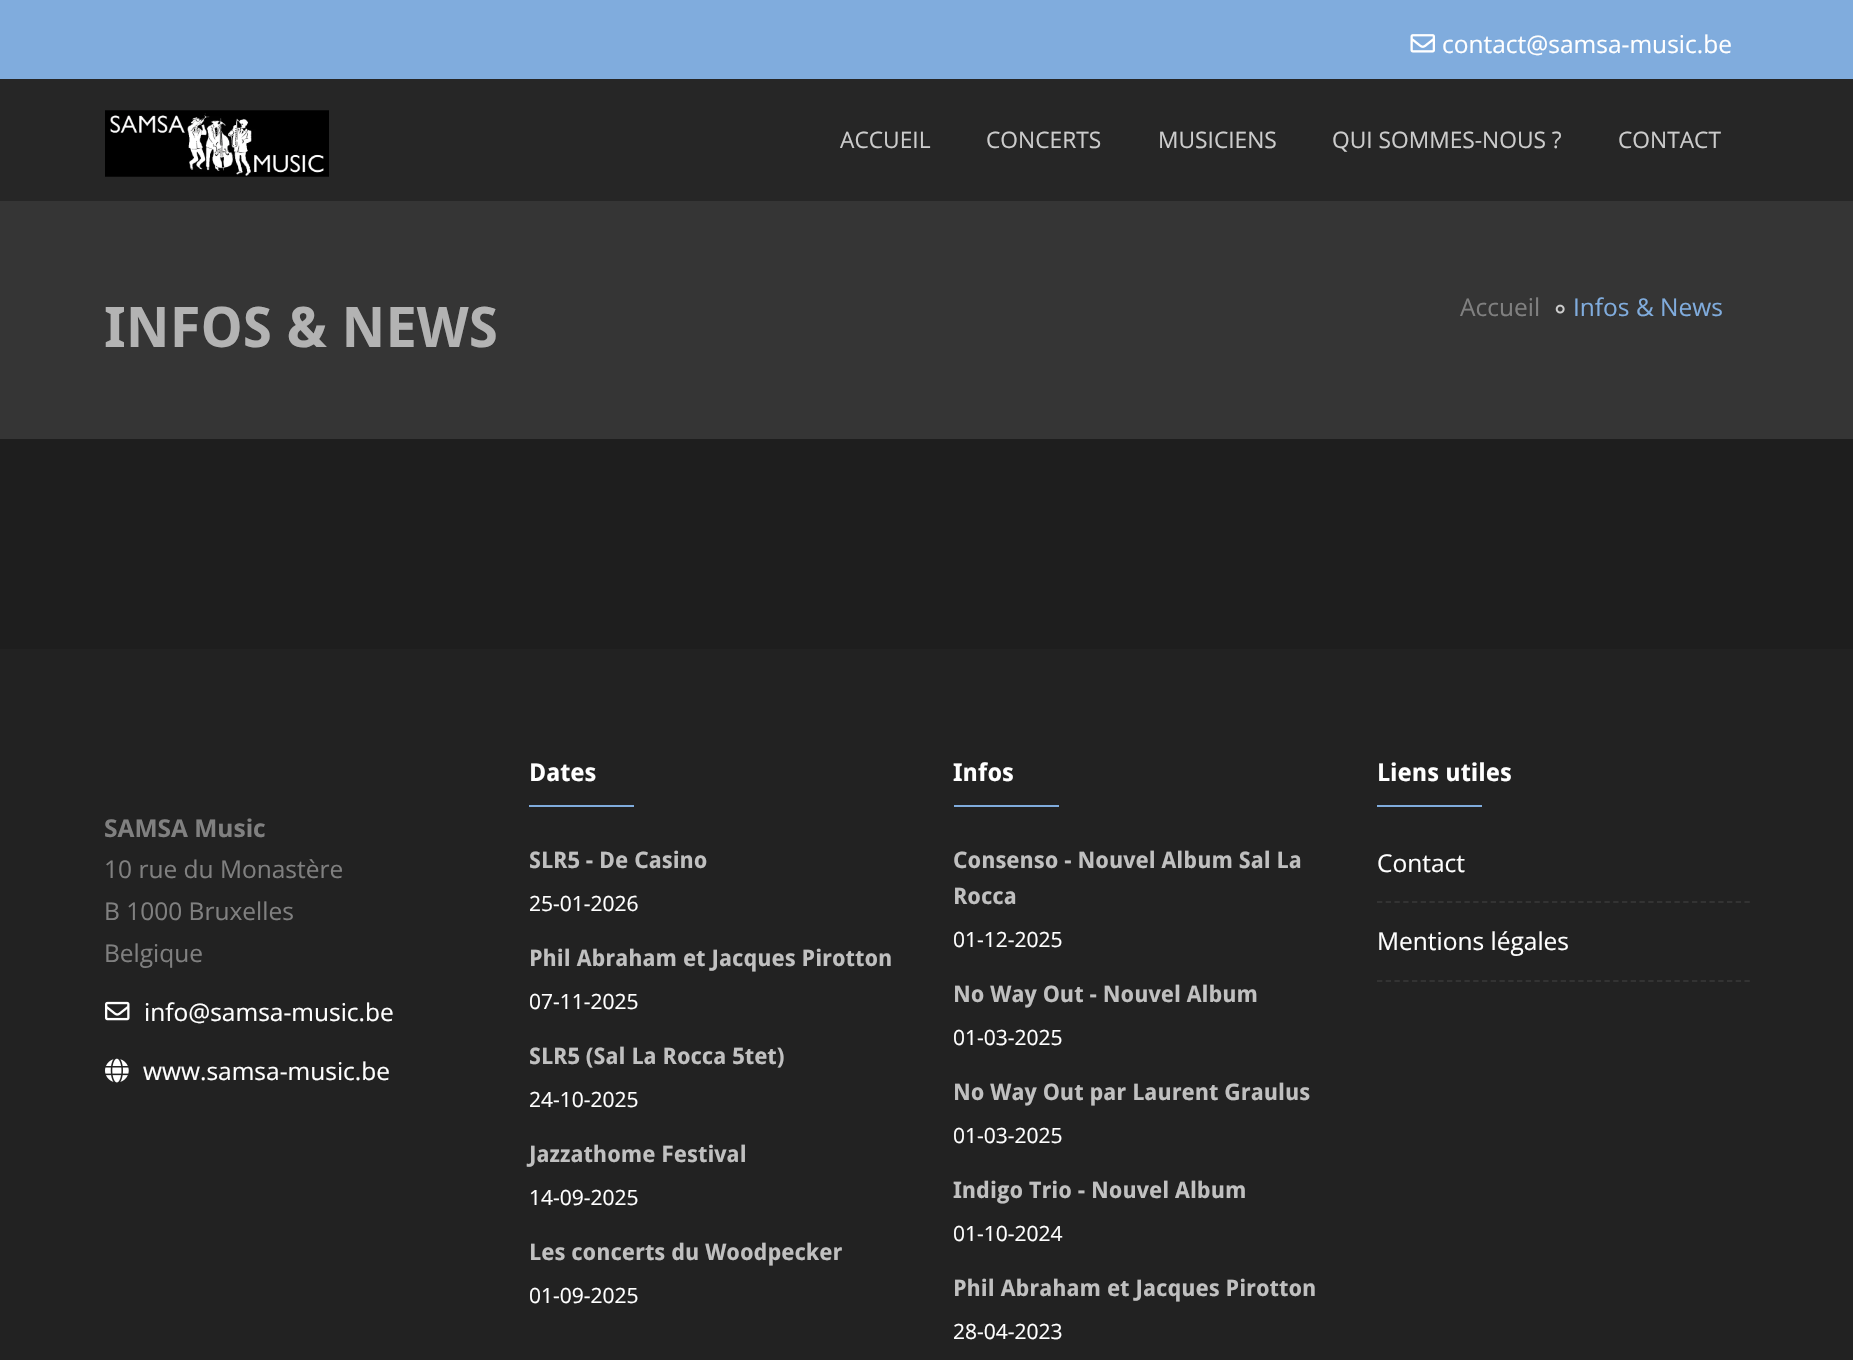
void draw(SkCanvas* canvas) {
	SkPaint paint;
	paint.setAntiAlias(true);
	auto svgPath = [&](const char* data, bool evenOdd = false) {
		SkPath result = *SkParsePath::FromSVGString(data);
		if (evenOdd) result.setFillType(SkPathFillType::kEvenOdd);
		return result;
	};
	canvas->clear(0xff1e1e1e);
	paint.setColor(0xff80acdd);
	canvas->drawRect(SkRect::MakeXYWH(0, 0, 1853, 79), paint);
	canvas->drawImageRect(SkImages::DeferredFromEncodedData(SkData::MakeFromFileName("img1.png")), SkRect::MakeXYWH(1410, 34, 25, 19), SkSamplingOptions());
	SkFont f1(fontMgr->matchFamilyStyle("Open Sans", SkFontStyle::Normal()), 24.5);
	f1.setSubpixel(true);
	paint.setColor(0xffffffff);
	canvas->drawString("contact@samsa-music.be", 1442, 53, f1, paint);
	paint.setColor(0xff262626);
	canvas->drawRect(SkRect::MakeXYWH(0, 79, 1853, 122), paint);
	canvas->drawImageRect(SkImages::DeferredFromEncodedData(SkData::MakeFromFileName("img2.png")), SkRect::MakeXYWH(105, 110, 224, 67), SkSamplingOptions());
	SkFont f2(fontMgr->matchFamilyStyle("Open Sans", SkFontStyle::Normal()), 22.75);
	f2.setSubpixel(true);
	paint.setColor(0xffcccccc);
	canvas->drawString("ACCUEIL", 840, 148, f2, paint);
	canvas->drawString("CONCERTS", 986, 148, f2, paint);
	canvas->drawString("MUSICIENS", 1158, 148, f2, paint);
	canvas->drawString("QUI SOMMES-NOUS ?", 1332, 148, f2, paint);
	canvas->drawString("CONTACT", 1618, 148, f2, paint);
	paint.setColor(0xff353535);
	canvas->drawRect(SkRect::MakeXYWH(0, 201, 1853, 238), paint);
	SkFont f3(fontMgr->matchFamilyStyle("Droid Sans", SkFontStyle::Bold()), 56);
	f3.setSubpixel(true);
	paint.setColor(0xffb3b3b3);
	canvas->drawString("INFOS & NEWS", 104, 347, f3, paint);
	paint.setColor(0xff808080);
	canvas->drawString("Accueil", 1460, 316, f1, paint);
	canvas->drawImageRect(SkImages::DeferredFromEncodedData(SkData::MakeFromFileName("img3.png")), SkRect::MakeXYWH(1555, 304, 10, 10), SkSamplingOptions());
	paint.setColor(0xff80acdd);
	canvas->drawString("Infos & News", 1573, 316, f1, paint);
	paint.setColor(0xff222222);
	canvas->drawRect(SkRect::MakeXYWH(0, 649, 1853, 711), paint);
	SkFont f4(fontMgr->matchFamilyStyle("Open Sans", SkFontStyle::Bold()), 24.5);
	f4.setSubpixel(true);
	paint.setColor(0xff808080);
	canvas->drawString("SAMSA Music", 104, 837, f4, paint);
	canvas->drawString("10 rue du Monastère", 104, 878, f1, paint);
	canvas->drawString("B 1000 Bruxelles", 104, 920, f1, paint);
	canvas->drawString("Belgique", 104, 962, f1, paint);
	canvas->drawImageRect(SkImages::DeferredFromEncodedData(SkData::MakeFromFileName("img4.png")), SkRect::MakeXYWH(105, 1001, 25, 20), SkSamplingOptions());
	paint.setColor(0xffffffff);
	canvas->drawString("info@samsa-music.be", 144, 1021, f1, paint);
	canvas->drawImageRect(SkImages::DeferredFromEncodedData(SkData::MakeFromFileName("img5.png")), SkRect::MakeXYWH(105, 1058, 24, 25), SkSamplingOptions());
	canvas->drawString("www.samsa-music.be", 143, 1080, f1, paint);
	SkFont f5(fontMgr->matchFamilyStyle("Droid Sans", SkFontStyle::Bold()), 24.5);
	f5.setSubpixel(true);
	canvas->drawString("Dates", 529, 781, f5, paint);
	paint.setColor(0xff80acdd);
	canvas->drawRect(SkRect::MakeXYWH(529, 805, 105, 2), paint);
	SkFont f6(fontMgr->matchFamilyStyle("Droid Sans", SkFontStyle::Bold()), 22.75);
	f6.setSubpixel(true);
	paint.setColor(0xffc0c0c0);
	canvas->drawString("SLR5 - De Casino", 529, 868, f6, paint);
	SkFont f7(fontMgr->matchFamilyStyle("Open Sans", SkFontStyle::Normal()), 21);
	f7.setSubpixel(true);
	paint.setColor(0xffffffff);
	canvas->drawString("25-01-2026", 529, 911, f7, paint);
	paint.setColor(0xffc0c0c0);
	canvas->drawString("Phil Abraham et Jacques Pirotton", 529, 966, f6, paint);
	paint.setColor(0xffffffff);
	canvas->drawString("07-11-2025", 529, 1009, f7, paint);
	paint.setColor(0xffc0c0c0);
	canvas->drawString("SLR5 (Sal La Rocca 5tet)", 529, 1064, f6, paint);
	paint.setColor(0xffffffff);
	canvas->drawString("24-10-2025", 529, 1107, f7, paint);
	paint.setColor(0xffc0c0c0);
	canvas->drawString("Jazzathome Festival", 529, 1162, f6, paint);
	paint.setColor(0xffffffff);
	canvas->drawString("14-09-2025", 529, 1205, f7, paint);
	paint.setColor(0xffc0c0c0);
	canvas->drawString("Les concerts du Woodpecker", 529, 1260, f6, paint);
	paint.setColor(0xffffffff);
	canvas->drawString("01-09-2025", 529, 1303, f7, paint);
	canvas->drawString("Infos", 953, 781, f5, paint);
	paint.setColor(0xff80acdd);
	canvas->drawRect(SkRect::MakeXYWH(954, 805, 105, 2), paint);
	paint.setColor(0xffc0c0c0);
	canvas->drawString("Consenso - Nouvel Album Sal La", 953, 868, f6, paint);
	canvas->drawString("Rocca", 953, 904, f6, paint);
	paint.setColor(0xffffffff);
	canvas->drawString("01-12-2025", 953, 947, f7, paint);
	paint.setColor(0xffc0c0c0);
	canvas->drawString("No Way Out - Nouvel Album", 953, 1002, f6, paint);
	paint.setColor(0xffffffff);
	canvas->drawString("01-03-2025", 953, 1045, f7, paint);
	paint.setColor(0xffc0c0c0);
	canvas->drawString("No Way Out par Laurent Graulus", 953, 1100, f6, paint);
	paint.setColor(0xffffffff);
	canvas->drawString("01-03-2025", 953, 1143, f7, paint);
	paint.setColor(0xffc0c0c0);
	canvas->drawString("Indigo Trio - Nouvel Album", 953, 1198, f6, paint);
	paint.setColor(0xffffffff);
	canvas->drawString("01-10-2024", 953, 1241, f7, paint);
	paint.setColor(0xffc0c0c0);
	canvas->drawString("Phil Abraham et Jacques Pirotton", 953, 1296, f6, paint);
	paint.setColor(0xffffffff);
	canvas->drawString("28-04-2023", 953, 1339, f7, paint);
	canvas->drawString("Liens utiles", 1377, 781, f5, paint);
	paint.setColor(0xff80acdd);
	canvas->drawRect(SkRect::MakeXYWH(1377, 805, 105, 2), paint);
	paint.setStroke(true);
	paint.setStrokeWidth(1.8);
	paint.setColor(0xff333333);
	paint.setPathEffect(SkDashPathEffect::Make({{5.25f, 3.5f}}, 0));
	canvas->drawPath(svgPath("M1377 902H1750"), paint);
	paint.setPathEffect(nullptr);
	paint.setStroke(false);
	paint.setColor(0xffffffff);
	canvas->drawString("Contact", 1377, 872, f1, paint);
	paint.setStroke(true);
	paint.setColor(0xff333333);
	paint.setPathEffect(SkDashPathEffect::Make({{5.25f, 3.5f}}, 0));
	canvas->drawPath(svgPath("M1377 981H1750"), paint);
	paint.setPathEffect(nullptr);
	paint.setStroke(false);
	paint.setColor(0xffffffff);
	canvas->drawString("Mentions légales", 1377, 950, f1, paint);
}
